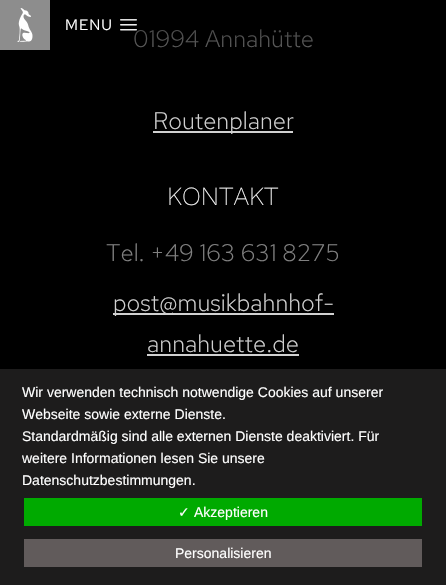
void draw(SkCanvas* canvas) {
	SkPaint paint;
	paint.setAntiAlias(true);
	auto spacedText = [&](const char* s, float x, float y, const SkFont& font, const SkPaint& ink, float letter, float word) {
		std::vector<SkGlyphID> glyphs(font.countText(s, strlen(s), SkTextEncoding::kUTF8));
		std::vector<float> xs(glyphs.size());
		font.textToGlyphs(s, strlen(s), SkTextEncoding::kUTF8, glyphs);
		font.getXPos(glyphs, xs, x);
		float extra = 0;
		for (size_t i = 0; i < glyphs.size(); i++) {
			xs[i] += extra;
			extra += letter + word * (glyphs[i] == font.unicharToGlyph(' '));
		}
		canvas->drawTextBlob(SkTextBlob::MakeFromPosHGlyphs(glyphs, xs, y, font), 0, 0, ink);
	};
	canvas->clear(0xff000000);
	SkFont f1(fontMgr->matchFamilyStyle("Red Hat Text", SkFontStyle(300, SkFontStyle::kNormal_Width, SkFontStyle::kUpright_Slant)), 24);
	f1.setSubpixel(true);
	paint.setColor(0xff808080);
	canvas->drawString("01994 Annahütte", 133, 47, f1, paint);
	{
		const SkColor colors[] = {0xb0000000, 0x00000000};
		const float stops[] = {0, 1};
		const SkPoint ends[] = {{223, 0}, {223, 80}};
		paint.setShader(SkGradientShader::MakeLinear(ends, colors, stops, 2, SkTileMode::kClamp));
		paint.setAlpha(255);
	}
	canvas->drawRect(SkRect::MakeXYWH(134, 29, 179, 19), paint);
	paint.setShader(nullptr);
	paint.setColor(0xff8d8d8d);
	canvas->drawRect(SkRect::MakeXYWH(0, 0, 50, 50), paint);
	canvas->drawImageRect(SkImages::DeferredFromEncodedData(SkData::MakeFromFileName("img1.png")), SkRect::MakeXYWH(17, 8, 16, 34), SkSamplingOptions());
	SkFont f2(fontMgr->matchFamilyStyle("Red Hat Text", SkFontStyle::Normal()), 15);
	f2.setSubpixel(true);
	paint.setColor(0xffffffff);
	spacedText("MENU", 65, 30, f2, paint, 1, 0);
	canvas->drawImageRect(SkImages::DeferredFromEncodedData(SkData::MakeFromFileName("img2.png")), SkRect::MakeXYWH(120, 19, 17, 12), SkSamplingOptions());
	paint.setColor(0xffd1d1d1);
	canvas->drawRect(SkRect::MakeXYWH(153, 131, 140, 2), paint);
	canvas->drawString("Routenplaner", 153, 129, f1, paint);
	SkFont f3(fontMgr->matchFamilyStyle("Work Sans", SkFontStyle(200, SkFontStyle::kNormal_Width, SkFontStyle::kUpright_Slant)), 26);
	f3.setSubpixel(true);
	paint.setColor(0xffffffff);
	canvas->drawString("KONTAKT", 167, 205, f3, paint);
	paint.setColor(0xff808080);
	canvas->drawString("Tel. +49 163 631 8275", 106, 261, f1, paint);
	paint.setColor(0xffd1d1d1);
	canvas->drawRect(SkRect::MakeXYWH(113, 313, 221, 2), paint);
	canvas->drawString("post@musikbahnhof-", 113, 311, f1, paint);
	canvas->drawString("annahuette.de", 147, 352, f1, paint);
	canvas->drawRect(SkRect::MakeXYWH(147, 354, 152, 2), paint);
	paint.setColor(0xff1d1c1c);
	canvas->drawRect(SkRect::MakeXYWH(0, 369, 446, 216), paint);
	SkFont f4(fontMgr->matchFamilyStyle("Liberation Sans", SkFontStyle::Normal()), 14);
	f4.setSubpixel(true);
	paint.setColor(0xffffffff);
	canvas->drawString("Wir verwenden technisch notwendige Cookies auf unserer", 22, 397, f4, paint);
	canvas->drawString("Webseite sowie externe Dienste.", 22, 419, f4, paint);
	canvas->drawString("Standardmäßig sind alle externen Dienste deaktiviert. Für", 22, 441, f4, paint);
	canvas->drawString("weitere Informationen lesen Sie unsere", 22, 463, f4, paint);
	canvas->drawString("Datenschutzbestimmungen.", 22, 485, f4, paint);
	paint.setColor(0xff00aa00);
	canvas->drawRect(SkRect::MakeXYWH(24, 498, 398, 28), paint);
	SkFont f5(fontMgr->matchFamilyStyle("DejaVu Sans", SkFontStyle::Normal()), 14);
	f5.setSubpixel(true);
	paint.setColor(0xffffffff);
	canvas->drawString("✓", 178, 517, f5, paint);
	canvas->drawString("Akzeptieren", 194, 517, f4, paint);
	paint.setColor(0xff615b5b);
	canvas->drawRect(SkRect::MakeXYWH(24, 539, 398, 28), paint);
	paint.setColor(0xffffffff);
	canvas->drawString("Personalisieren", 175, 558, f4, paint);
}
